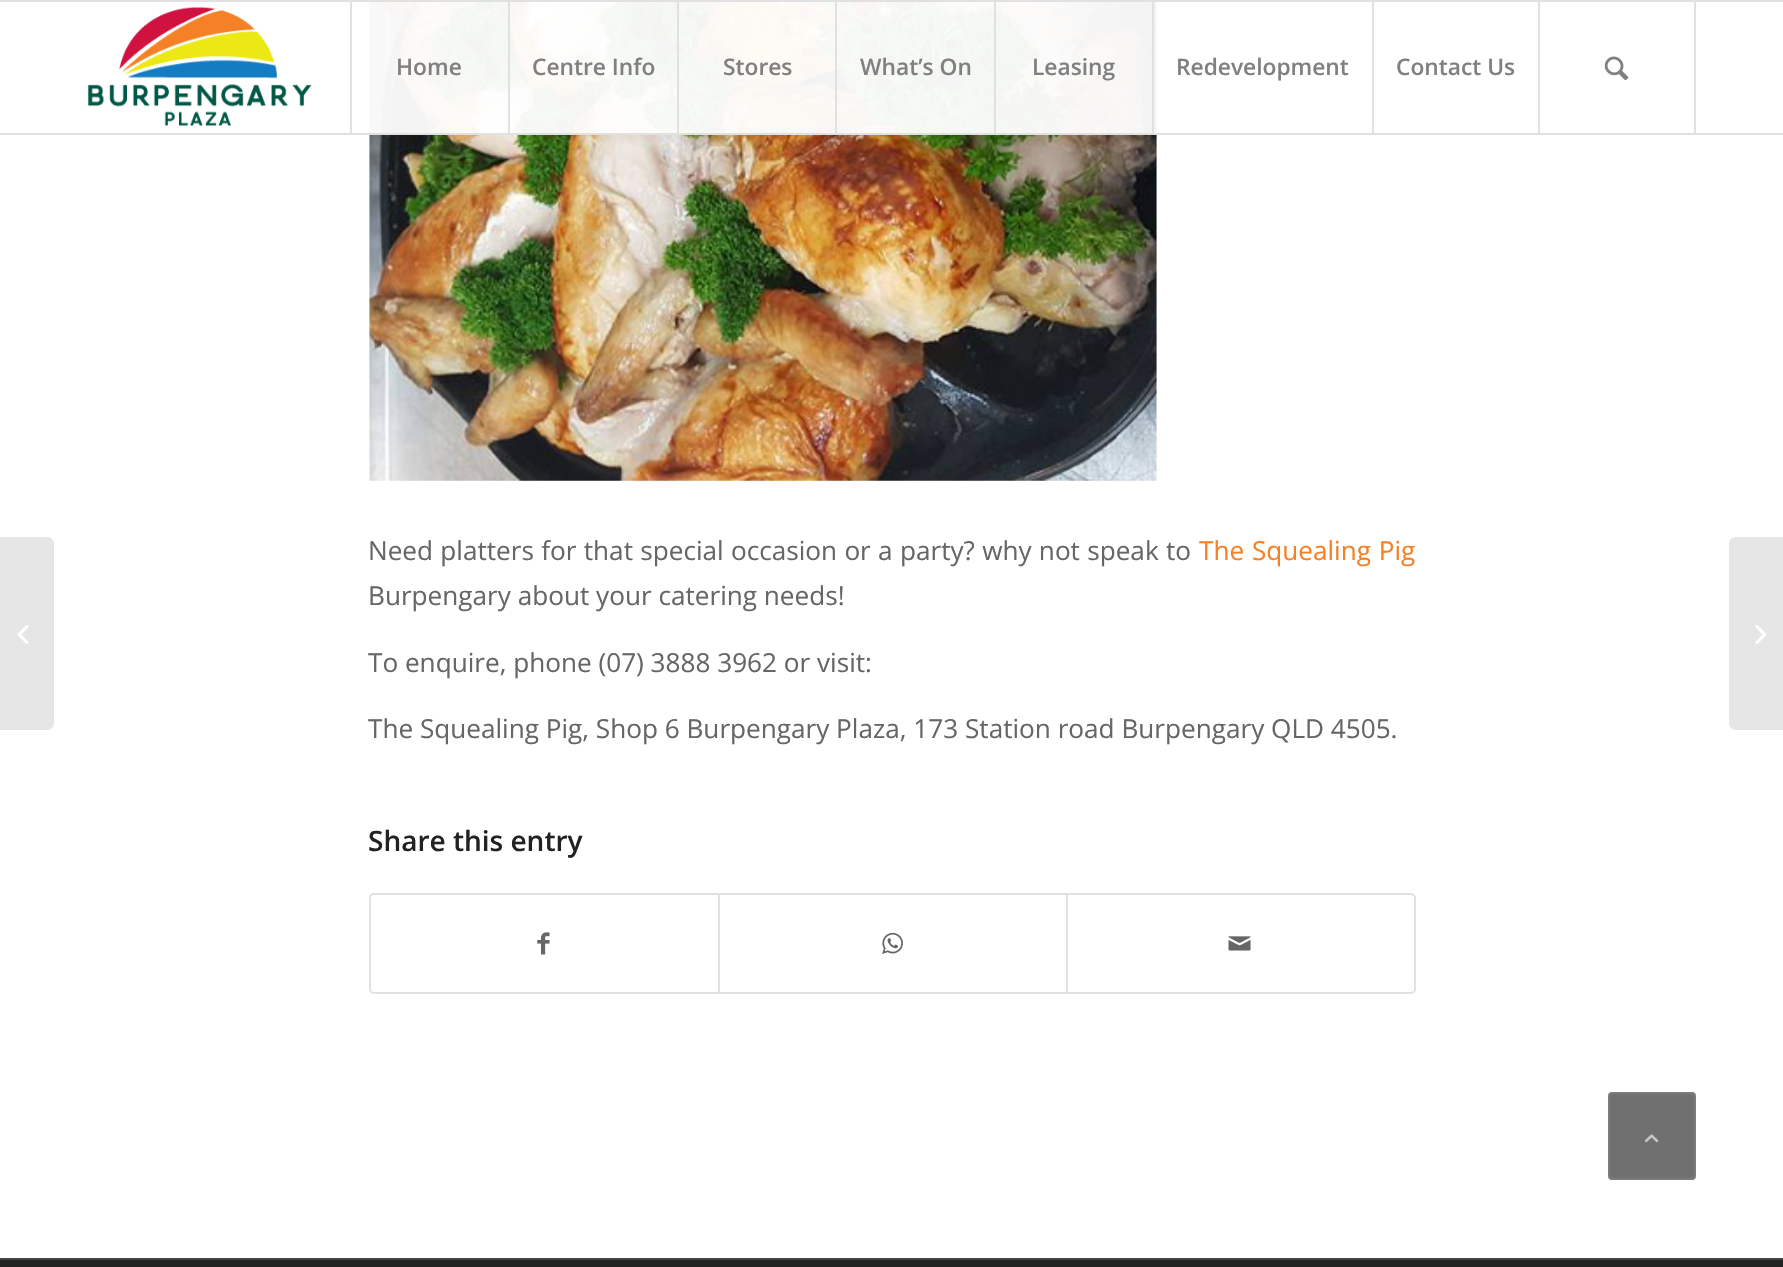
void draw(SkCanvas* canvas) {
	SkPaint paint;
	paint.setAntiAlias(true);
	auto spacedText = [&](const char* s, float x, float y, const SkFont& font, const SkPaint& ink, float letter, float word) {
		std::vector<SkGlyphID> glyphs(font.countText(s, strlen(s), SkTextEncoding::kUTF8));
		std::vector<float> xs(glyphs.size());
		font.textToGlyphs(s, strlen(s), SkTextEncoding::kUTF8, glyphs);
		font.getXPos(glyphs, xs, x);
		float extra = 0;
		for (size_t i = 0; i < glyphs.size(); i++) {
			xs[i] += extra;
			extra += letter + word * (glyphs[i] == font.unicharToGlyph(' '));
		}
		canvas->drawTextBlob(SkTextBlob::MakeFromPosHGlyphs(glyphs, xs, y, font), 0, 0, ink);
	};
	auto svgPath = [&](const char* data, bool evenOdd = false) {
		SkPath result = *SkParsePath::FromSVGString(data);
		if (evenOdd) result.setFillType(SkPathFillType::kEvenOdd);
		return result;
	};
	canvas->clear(0xffffffff);
	canvas->drawImageRect(SkImages::DeferredFromEncodedData(SkData::MakeFromFileName("img5.png")), SkRect::MakeXYWH(369, 2, 788, 479), SkSamplingOptions());
	paint.setColor(0xf2ffffff);
	canvas->drawRect(SkRect::MakeXYWH(369, 2, 788, 131), paint);
	paint.setColor(0xffe1e1e1);
	canvas->drawRect(SkRect::MakeXYWH(0, 0, 1783, 2), paint);
	canvas->drawRect(SkRect::MakeXYWH(0, 133, 1783, 2), paint);
	canvas->drawImageRect(SkImages::DeferredFromEncodedData(SkData::MakeFromFileName("img1.png")), SkRect::MakeXYWH(88, 6, 224, 120), SkSamplingOptions());
	canvas->drawRect(SkRect::MakeXYWH(350, 2, 2, 131), paint);
	SkFont f1(fontMgr->matchFamilyStyle("Open Sans", SkFontStyle(600, SkFontStyle::kNormal_Width, SkFontStyle::kUpright_Slant)), 22.75);
	f1.setSubpixel(true);
	paint.setColor(0xff808080);
	canvas->drawString("Home", 396, 75, f1, paint);
	paint.setColor(0xffe1e1e1);
	canvas->drawRect(SkRect::MakeXYWH(508, 2, 2, 131), paint);
	paint.setColor(0xff808080);
	canvas->drawString("Centre Info", 532, 75, f1, paint);
	paint.setColor(0xffe1e1e1);
	canvas->drawRect(SkRect::MakeXYWH(677, 2, 2, 131), paint);
	paint.setColor(0xff808080);
	canvas->drawString("Stores", 723, 75, f1, paint);
	paint.setColor(0xffe1e1e1);
	canvas->drawRect(SkRect::MakeXYWH(835, 2, 2, 131), paint);
	paint.setColor(0xff808080);
	canvas->drawString("What’s On", 860, 75, f1, paint);
	paint.setColor(0xffe1e1e1);
	canvas->drawRect(SkRect::MakeXYWH(994, 2, 2, 131), paint);
	paint.setColor(0xff808080);
	canvas->drawString("Leasing", 1032, 75, f1, paint);
	paint.setColor(0xffe1e1e1);
	canvas->drawRect(SkRect::MakeXYWH(1152, 2, 2, 131), paint);
	paint.setColor(0xff808080);
	canvas->drawString("Redevelopment", 1176, 75, f1, paint);
	paint.setColor(0xffe1e1e1);
	canvas->drawRect(SkRect::MakeXYWH(1372, 2, 2, 131), paint);
	paint.setColor(0xff808080);
	canvas->drawString("Contact Us", 1396, 75, f1, paint);
	paint.setColor(0xffe1e1e1);
	canvas->drawRect(SkRect::MakeXYWH(1694, 2, 2, 131), paint);
	canvas->drawRect(SkRect::MakeXYWH(1538, 2, 2, 131), paint);
	canvas->drawImageRect(SkImages::DeferredFromEncodedData(SkData::MakeFromFileName("img2.png")), SkRect::MakeXYWH(1604, 56, 25, 25), SkSamplingOptions());
	paint.setColor(0xffe6e6e6);
	canvas->drawPath(svgPath("M0 537H47C51 537 54 540 54 544V723C54 727 51 730 47 730H0Z"), paint);
	canvas->drawImageRect(SkImages::DeferredFromEncodedData(SkData::MakeFromFileName("img3.png")), SkRect::MakeXYWH(17, 625, 12, 19), SkSamplingOptions());
	canvas->drawPath(svgPath("M1736 537H1783V730H1736C1732 730 1729 727 1729 723V544C1729 540 1732 537 1736 537Z"), paint);
	canvas->drawImageRect(SkImages::DeferredFromEncodedData(SkData::MakeFromFileName("img4.png")), SkRect::MakeXYWH(1755, 625, 12, 19), SkSamplingOptions());
	SkFont f2(fontMgr->matchFamilyStyle("Open Sans", SkFontStyle::Normal()), 26.15);
	f2.setSubpixel(true);
	paint.setColor(0xff666666);
	spacedText("Need platters for that special occasion or a party? why not speak to", 368, 560, f2, paint, 0, 0.5);
	paint.setColor(0xfff58026);
	spacedText("The Squealing Pig", 1199, 560, f2, paint, 0, 1);
	paint.setColor(0xff666666);
	canvas->drawString("Burpengary about your catering needs!", 368, 605, f2, paint);
	canvas->drawString("To enquire, phone (07) 3888 3962 or visit:", 368, 672, f2, paint);
	canvas->drawString("The Squealing Pig, Shop 6 Burpengary Plaza, 173 Station road Burpengary QLD 4505.", 368, 738, f2, paint);
	SkFont f3(fontMgr->matchFamilyStyle("Open Sans", SkFontStyle(600, SkFontStyle::kNormal_Width, SkFontStyle::kUpright_Slant)), 28);
	f3.setSubpixel(true);
	paint.setColor(0xff222222);
	canvas->drawString("Share this entry", 368, 851, f3, paint);
	paint.setStroke(true);
	paint.setStrokeWidth(2);
	paint.setColor(0xffe1e1e1);
	canvas->drawRoundRect(SkRect::MakeXYWH(370, 894, 1045, 99), 4, 4, paint);
	canvas->drawImageRect(SkImages::DeferredFromEncodedData(SkData::MakeFromFileName("img6.png")), SkRect::MakeXYWH(537, 932, 13, 23), SkSamplingOptions());
	paint.setStroke(false);
	canvas->drawRect(SkRect::MakeXYWH(718, 894, 2, 98), paint);
	canvas->drawImageRect(SkImages::DeferredFromEncodedData(SkData::MakeFromFileName("img7.png")), SkRect::MakeXYWH(882, 932, 21, 22), SkSamplingOptions());
	canvas->drawRect(SkRect::MakeXYWH(1066, 894, 2, 98), paint);
	canvas->drawImageRect(SkImages::DeferredFromEncodedData(SkData::MakeFromFileName("img8.png")), SkRect::MakeXYWH(1228, 936, 23, 15), SkSamplingOptions());
	paint.setColor(0xff222222);
	canvas->drawRect(SkRect::MakeXYWH(0, 1260, 1783, 7), paint);
	paint.setColor(0xff444444);
	canvas->drawRect(SkRect::MakeXYWH(0, 1258, 1783, 2), paint);
	paint.setColor(0xff707070);
	canvas->drawRoundRect(SkRect::MakeXYWH(1609, 1093, 86, 86), 3, 3, paint);
	paint.setStroke(true);
	paint.setColor(0xff7c7c7c);
	canvas->drawRoundRect(SkRect::MakeXYWH(1609, 1093, 86, 86), 3, 3, paint);
	canvas->drawImageRect(SkImages::DeferredFromEncodedData(SkData::MakeFromFileName("img9.png")), SkRect::MakeXYWH(1645, 1134, 14, 9), SkSamplingOptions());
}
